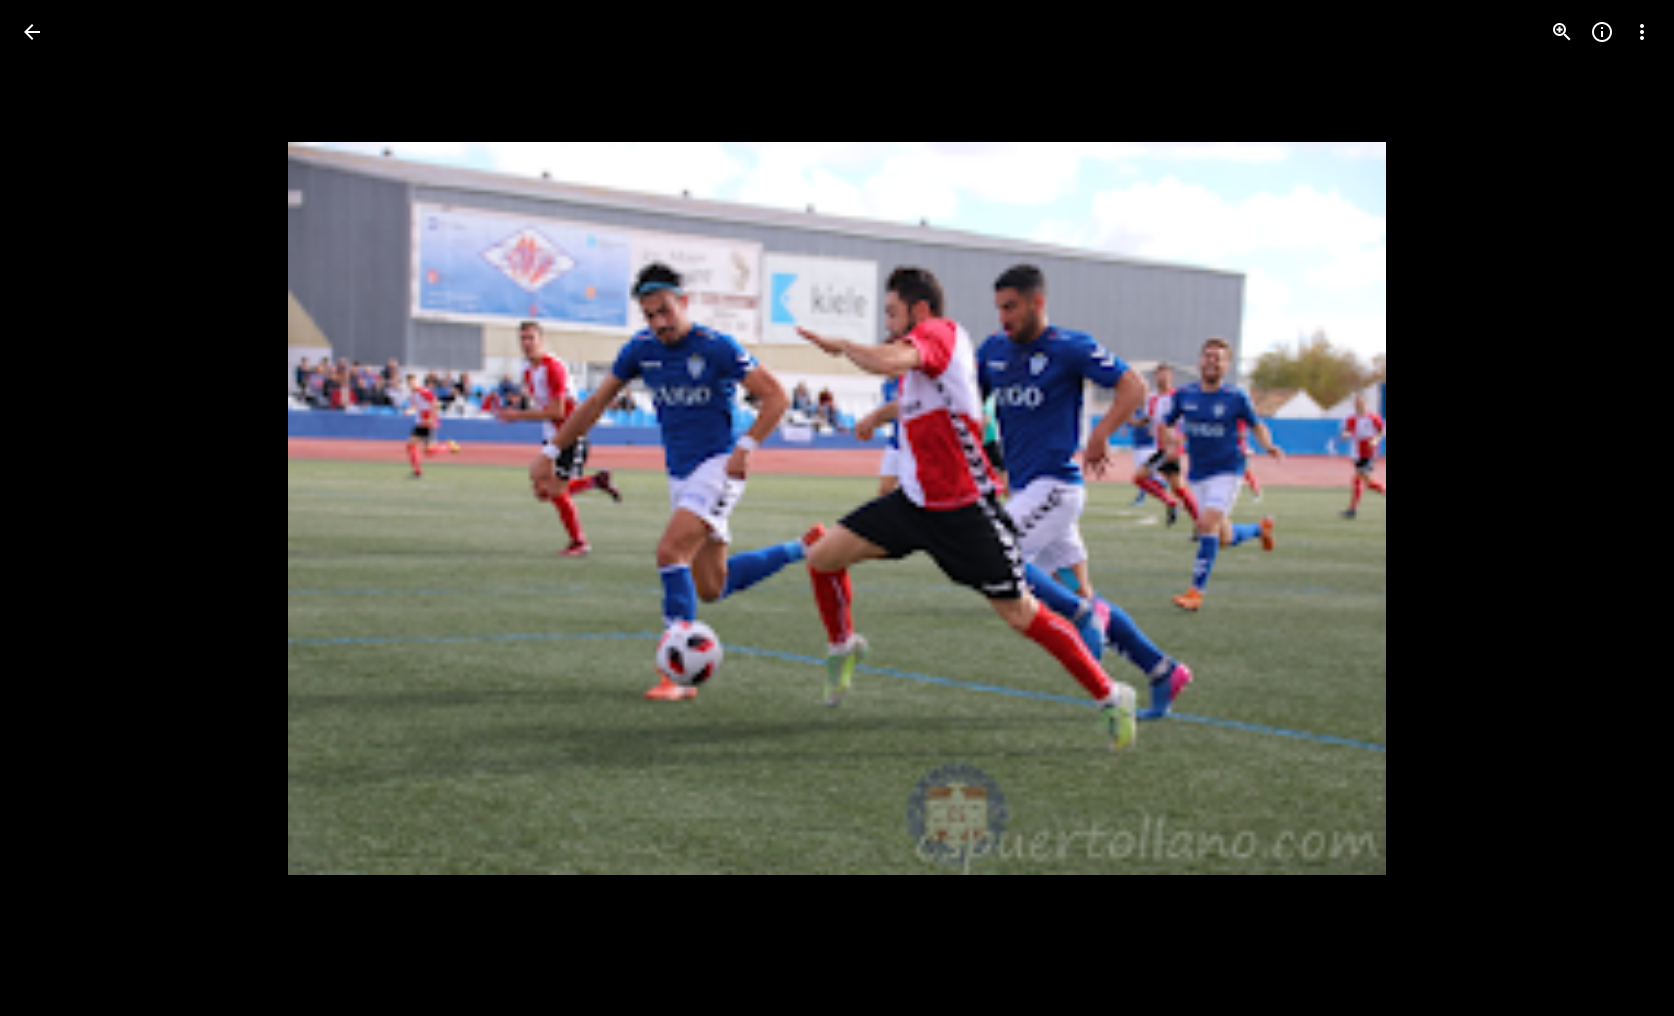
void draw(SkCanvas* canvas) {
	SkPaint paint;
	paint.setAntiAlias(true);
	canvas->clear(0xff000000);
	canvas->drawImageRect(SkImages::DeferredFromEncodedData(SkData::MakeFromFileName("img1.png")), SkRect::MakeXYWH(24, 24, 16, 16), SkSamplingOptions());
	canvas->drawImageRect(SkImages::DeferredFromEncodedData(SkData::MakeFromFileName("img2.png")), SkRect::MakeXYWH(1553, 23, 18, 18), SkSamplingOptions());
	canvas->drawImageRect(SkImages::DeferredFromEncodedData(SkData::MakeFromFileName("img3.png")), SkRect::MakeXYWH(1592, 22, 20, 20), SkSamplingOptions());
	canvas->drawImageRect(SkImages::DeferredFromEncodedData(SkData::MakeFromFileName("img4.png")), SkRect::MakeXYWH(1640, 24, 4, 16), SkSamplingOptions());
	canvas->drawImageRect(SkImages::DeferredFromEncodedData(SkData::MakeFromFileName("img5.png")), SkRect::MakeXYWH(288, 142, 1098, 733), SkSamplingOptions());
}
